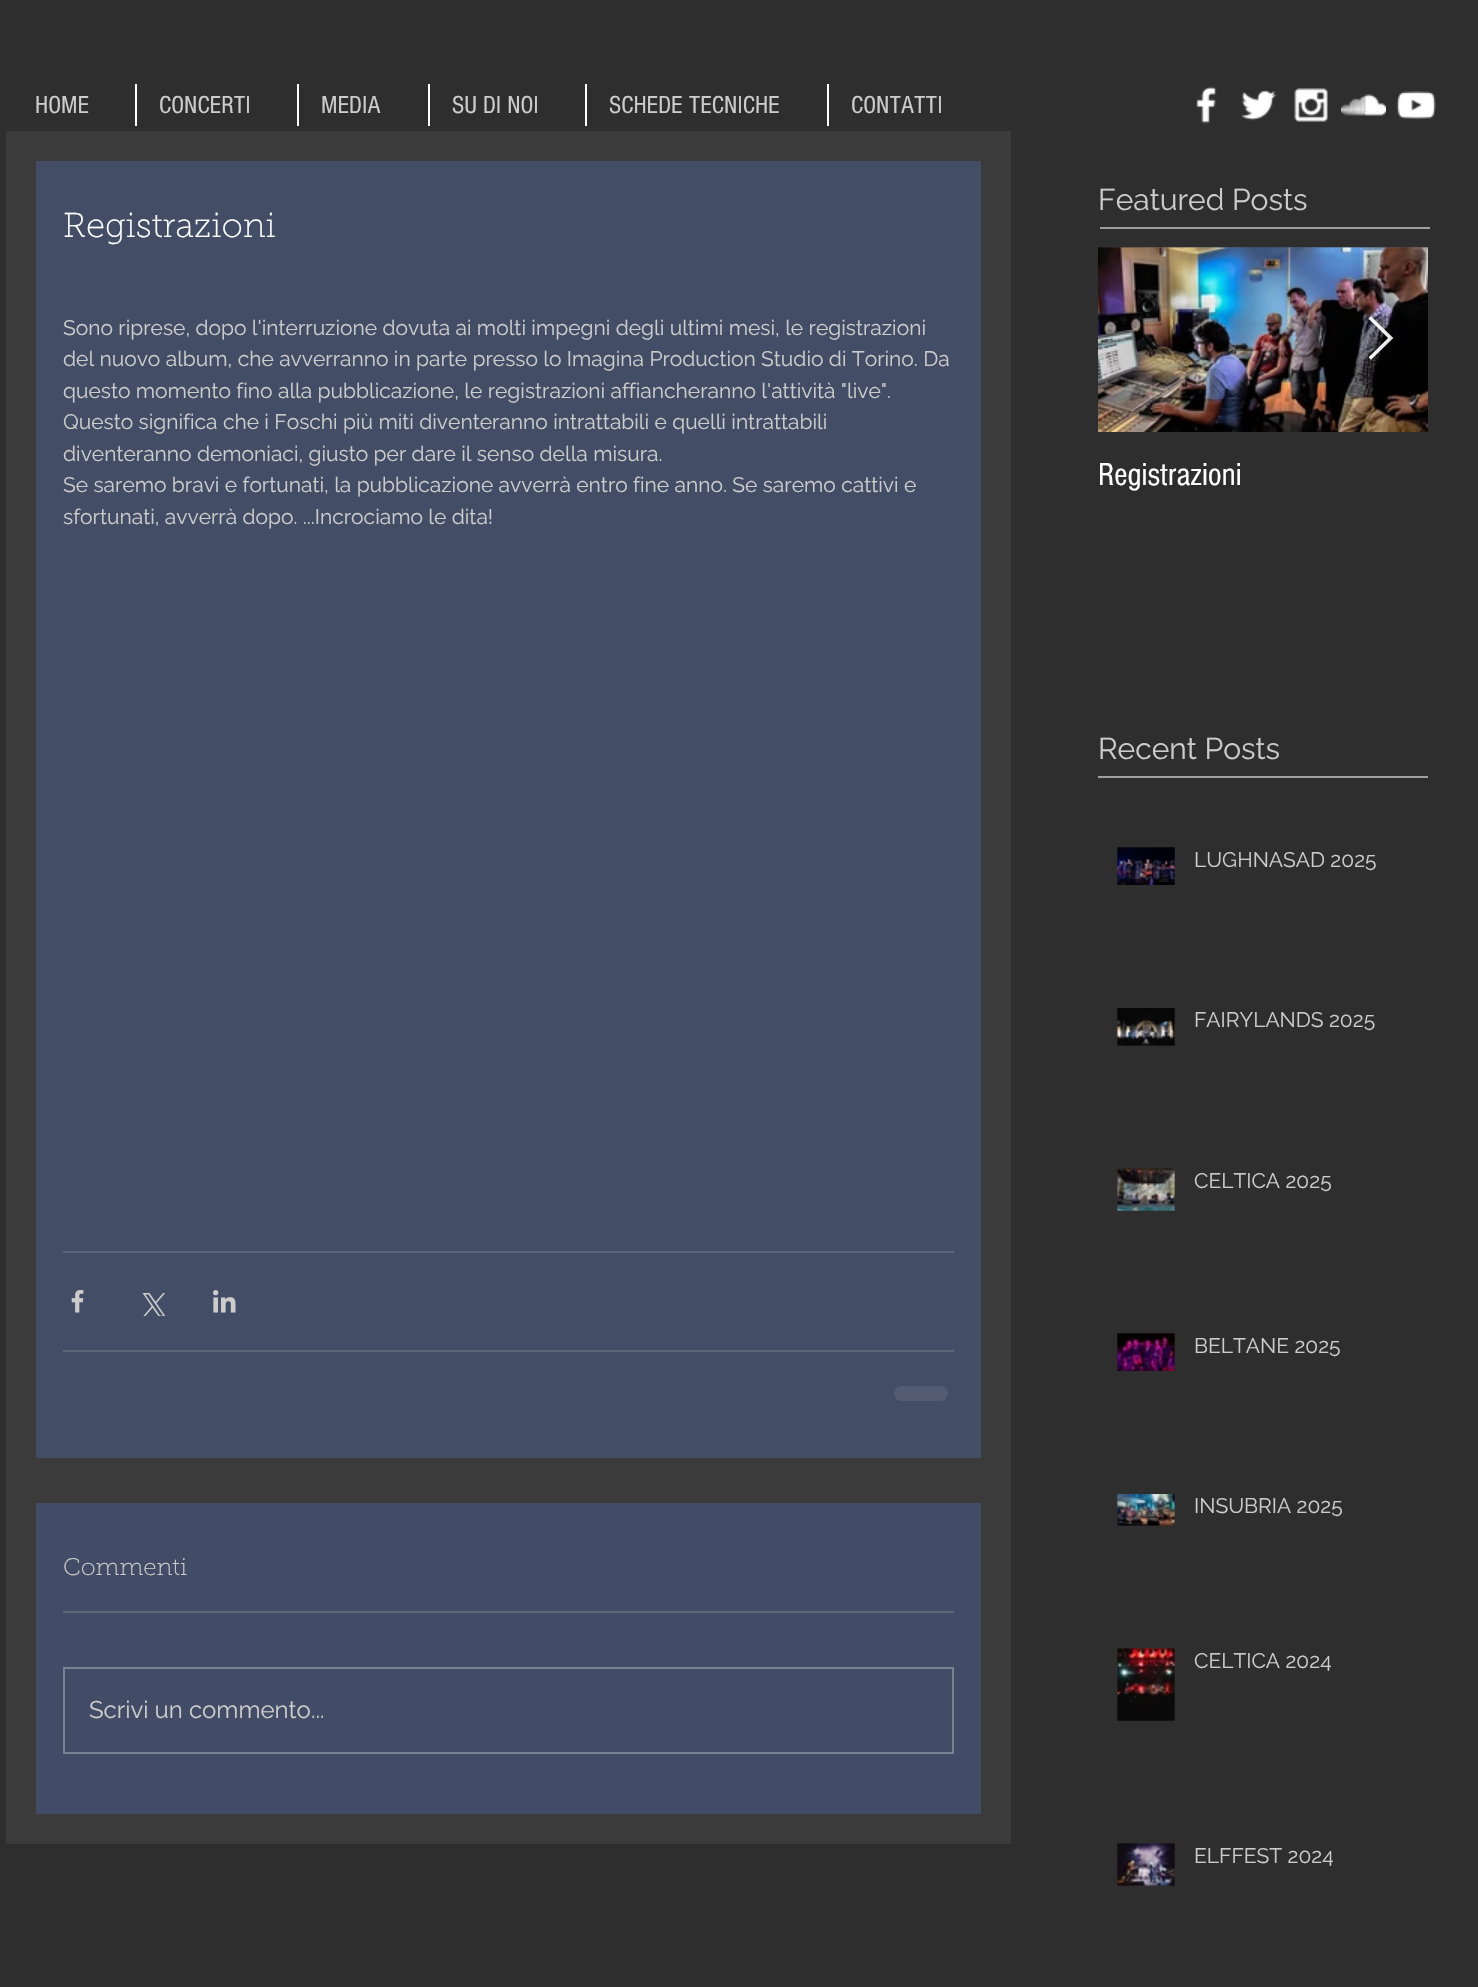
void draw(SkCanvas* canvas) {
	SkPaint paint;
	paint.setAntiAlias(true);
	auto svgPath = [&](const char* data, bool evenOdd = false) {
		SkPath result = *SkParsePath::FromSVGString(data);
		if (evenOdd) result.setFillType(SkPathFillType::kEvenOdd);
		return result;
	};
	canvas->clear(0xff2f2e2e);
	SkFont f1(fontMgr->matchFamilyStyle("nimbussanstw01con", SkFontStyle::Normal()), 25.5);
	f1.setSubpixel(true);
	paint.setColor(0xffcccccc);
	canvas->drawString("HOME", 35, 113, f1, paint);
	paint.setColor(0xffffffff);
	canvas->drawRect(SkRect::MakeXYWH(135, 84, 2, 42), paint);
	paint.setColor(0xffcccccc);
	canvas->drawString("CONCERTI", 159, 113, f1, paint);
	paint.setColor(0xffffffff);
	canvas->drawRect(SkRect::MakeXYWH(297, 84, 2, 42), paint);
	paint.setColor(0xffcccccc);
	canvas->drawString("MEDIA", 321, 113, f1, paint);
	paint.setColor(0xffffffff);
	canvas->drawRect(SkRect::MakeXYWH(428, 84, 2, 42), paint);
	paint.setColor(0xffcccccc);
	canvas->drawString("SU DI NOI", 452, 113, f1, paint);
	paint.setColor(0xffffffff);
	canvas->drawRect(SkRect::MakeXYWH(585, 84, 2, 42), paint);
	paint.setColor(0xffcccccc);
	canvas->drawString("SCHEDE TECNICHE", 609, 113, f1, paint);
	paint.setColor(0xffffffff);
	canvas->drawRect(SkRect::MakeXYWH(827, 84, 2, 42), paint);
	paint.setColor(0xffcccccc);
	canvas->drawString("CONTATTI", 851, 113, f1, paint);
	canvas->drawImageRect(SkImages::DeferredFromEncodedData(SkData::MakeFromFileName("img1.png")), SkRect::MakeXYWH(1196, 86, 21, 38), SkSamplingOptions());
	canvas->drawImageRect(SkImages::DeferredFromEncodedData(SkData::MakeFromFileName("img2.png")), SkRect::MakeXYWH(1241, 90, 36, 31), SkSamplingOptions());
	canvas->drawImageRect(SkImages::DeferredFromEncodedData(SkData::MakeFromFileName("img3.png")), SkRect::MakeXYWH(1294, 88, 34, 34), SkSamplingOptions());
	canvas->drawImageRect(SkImages::DeferredFromEncodedData(SkData::MakeFromFileName("img4.png")), SkRect::MakeXYWH(1341, 94, 45, 22), SkSamplingOptions());
	canvas->drawImageRect(SkImages::DeferredFromEncodedData(SkData::MakeFromFileName("img5.png")), SkRect::MakeXYWH(1396, 91, 40, 28), SkSamplingOptions());
	SkFont f2(fontMgr->matchFamilyStyle("Raleway", SkFontStyle::Normal()), 30);
	f2.setSubpixel(true);
	canvas->drawString("Featured Posts", 1098, 210, f2, paint);
	paint.setColor(0xff3c3b3b);
	canvas->drawRect(SkRect::MakeXYWH(6, 131, 1005, 1713), paint);
	paint.setColor(0xff434d66);
	canvas->drawRect(SkRect::MakeXYWH(36, 161, 945, 1297), paint);
	SkFont f3(fontMgr->matchFamilyStyle("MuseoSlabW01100", SkFontStyle(100, SkFontStyle::kNormal_Width, SkFontStyle::kUpright_Slant)), 34.5);
	f3.setSubpixel(true);
	paint.setColor(0xffffffff);
	canvas->drawString("Registrazioni", 63, 237, f3, paint);
	SkFont f4(fontMgr->matchFamilyStyle("Raleway", SkFontStyle::Normal()), 21);
	f4.setSubpixel(true);
	paint.setColor(0xffcccccc);
	canvas->drawString("Sono riprese, dopo l'interruzione dovuta ai molti impegni degli ultimi mesi, le registrazioni", 63, 335, f4, paint);
	canvas->drawString("del nuovo album, che avverranno in parte presso lo Imagina Production Studio di Torino. Da", 63, 366, f4, paint);
	canvas->drawString("questo momento fino alla pubblicazione, le registrazioni affiancheranno l'attività \"live\".", 63, 398, f4, paint);
	canvas->drawString("Questo significa che i Foschi più miti diventeranno intrattabili e quelli intrattabili", 63, 429, f4, paint);
	canvas->drawString("diventeranno demoniaci, giusto per dare il senso della misura.", 63, 461, f4, paint);
	canvas->drawString("Se saremo bravi e fortunati, la pubblicazione avverrà entro fine anno. Se saremo cattivi e", 63, 492, f4, paint);
	canvas->drawString("sfortunati, avverrà dopo. ...Incrociamo le dita!", 63, 524, f4, paint);
	paint.setColor(0xff5e667a);
	canvas->drawRect(SkRect::MakeXYWH(63, 1251, 891, 2), paint);
	canvas->drawImageRect(SkImages::DeferredFromEncodedData(SkData::MakeFromFileName("img6.png")), SkRect::MakeXYWH(71, 1290, 13, 23), SkSamplingOptions());
	canvas->drawImageRect(SkImages::DeferredFromEncodedData(SkData::MakeFromFileName("img7.png")), SkRect::MakeXYWH(142, 1293, 23, 23), SkSamplingOptions());
	canvas->drawImageRect(SkImages::DeferredFromEncodedData(SkData::MakeFromFileName("img8.png")), SkRect::MakeXYWH(213, 1290, 23, 23), SkSamplingOptions());
	canvas->drawRect(SkRect::MakeXYWH(63, 1350, 891, 2), paint);
	paint.setColor(0xff535c72);
	canvas->drawRoundRect(SkRect::MakeXYWH(894, 1386, 54, 15), 7.5, 7.5, paint);
	paint.setColor(0xff434c66);
	canvas->drawRect(SkRect::MakeXYWH(36, 1503, 945, 311), paint);
	SkFont f5(fontMgr->matchFamilyStyle("MuseoSlabW01100", SkFontStyle(100, SkFontStyle::kNormal_Width, SkFontStyle::kUpright_Slant)), 24);
	f5.setSubpixel(true);
	paint.setColor(0xffcccccc);
	canvas->drawString("Commenti", 63, 1575, f5, paint);
	paint.setColor(0xff5e667a);
	canvas->drawRect(SkRect::MakeXYWH(63, 1611, 891, 2), paint);
	paint.setStroke(true);
	paint.setStrokeWidth(2);
	paint.setColor(0xff7b8294);
	canvas->drawRect(SkRect::MakeXYWH(64, 1668, 889, 85), paint);
	SkFont f6(fontMgr->matchFamilyStyle("Raleway", SkFontStyle::Normal()), 24);
	f6.setSubpixel(true);
	paint.setStroke(false);
	paint.setColor(0xffcccccc);
	canvas->drawString("Scrivi un commento...", 89, 1718, f6, paint);
	paint.setColor(0xffa0a09f);
	canvas->drawRect(SkRect::MakeXYWH(1100, 227, 330, 2), paint);
	canvas->drawImageRect(SkImages::DeferredFromEncodedData(SkData::MakeFromFileName("img9.png")), SkRect::MakeXYWH(1098, 247, 330, 1), SkSamplingOptions());
	canvas->drawImageRect(SkImages::DeferredFromEncodedData(SkData::MakeFromFileName("img10.png")), SkRect::MakeXYWH(1098, 247, 330, 185), SkSamplingOptions());
	paint.setColor(0xe6ffffff);
	canvas->drawPath(svgPath("M1369 319L1371 317L1392 338L1371 359L1369 357L1389 338Z"), paint);
	paint.setStroke(true);
	paint.setStrokeWidth(1.2);
	canvas->drawPath(svgPath("M1369.5 318.5L1371 317L1392.5 338L1371 359L1369.5 357.5L1389 338Z"), paint);
	SkFont f7(fontMgr->matchFamilyStyle("nimbussanstw01con", SkFontStyle::Normal()), 33);
	f7.setSubpixel(true);
	paint.setStroke(false);
	paint.setColor(0xffffffff);
	canvas->drawString("Registrazioni", 1098, 485, f7, paint);
	paint.setColor(0xffcccccc);
	canvas->drawString("Recent Posts", 1098, 759, f2, paint);
	paint.setColor(0xffa0a09f);
	canvas->drawRect(SkRect::MakeXYWH(1098, 776, 330, 2), paint);
	canvas->drawImageRect(SkImages::DeferredFromEncodedData(SkData::MakeFromFileName("img11.png")), SkRect::MakeXYWH(1117, 847, 58, 38), SkSamplingOptions());
	canvas->drawImageRect(SkImages::DeferredFromEncodedData(SkData::MakeFromFileName("img12.png")), SkRect::MakeXYWH(1117, 847, 58, 38), SkSamplingOptions());
	paint.setColor(0xffcccccc);
	canvas->drawString("LUGHNASAD 2025", 1194, 867, f4, paint);
	canvas->drawImageRect(SkImages::DeferredFromEncodedData(SkData::MakeFromFileName("img13.png")), SkRect::MakeXYWH(1117, 1008, 58, 38), SkSamplingOptions());
	canvas->drawImageRect(SkImages::DeferredFromEncodedData(SkData::MakeFromFileName("img14.png")), SkRect::MakeXYWH(1117, 1008, 58, 38), SkSamplingOptions());
	canvas->drawString("FAIRYLANDS 2025", 1194, 1027, f4, paint);
	canvas->drawImageRect(SkImages::DeferredFromEncodedData(SkData::MakeFromFileName("img15.png")), SkRect::MakeXYWH(1117, 1168, 58, 43), SkSamplingOptions());
	canvas->drawImageRect(SkImages::DeferredFromEncodedData(SkData::MakeFromFileName("img16.png")), SkRect::MakeXYWH(1117, 1168, 58, 43), SkSamplingOptions());
	canvas->drawString("CELTICA 2025", 1194, 1188, f4, paint);
	canvas->drawImageRect(SkImages::DeferredFromEncodedData(SkData::MakeFromFileName("img17.png")), SkRect::MakeXYWH(1117, 1333, 58, 38), SkSamplingOptions());
	canvas->drawImageRect(SkImages::DeferredFromEncodedData(SkData::MakeFromFileName("img18.png")), SkRect::MakeXYWH(1117, 1333, 58, 38), SkSamplingOptions());
	canvas->drawString("BELTANE 2025", 1194, 1353, f4, paint);
	canvas->drawImageRect(SkImages::DeferredFromEncodedData(SkData::MakeFromFileName("img19.png")), SkRect::MakeXYWH(1117, 1494, 58, 32), SkSamplingOptions());
	canvas->drawImageRect(SkImages::DeferredFromEncodedData(SkData::MakeFromFileName("img20.png")), SkRect::MakeXYWH(1117, 1494, 58, 32), SkSamplingOptions());
	canvas->drawString("INSUBRIA 2025", 1194, 1513, f4, paint);
	canvas->drawImageRect(SkImages::DeferredFromEncodedData(SkData::MakeFromFileName("img21.png")), SkRect::MakeXYWH(1117, 1648, 58, 73), SkSamplingOptions());
	canvas->drawImageRect(SkImages::DeferredFromEncodedData(SkData::MakeFromFileName("img22.png")), SkRect::MakeXYWH(1117, 1648, 58, 73), SkSamplingOptions());
	canvas->drawString("CELTICA 2024", 1194, 1668, f4, paint);
	canvas->drawImageRect(SkImages::DeferredFromEncodedData(SkData::MakeFromFileName("img23.png")), SkRect::MakeXYWH(1117, 1843, 58, 43), SkSamplingOptions());
	canvas->drawImageRect(SkImages::DeferredFromEncodedData(SkData::MakeFromFileName("img24.png")), SkRect::MakeXYWH(1117, 1843, 58, 43), SkSamplingOptions());
	canvas->drawString("ELFFEST 2024", 1194, 1863, f4, paint);
}
